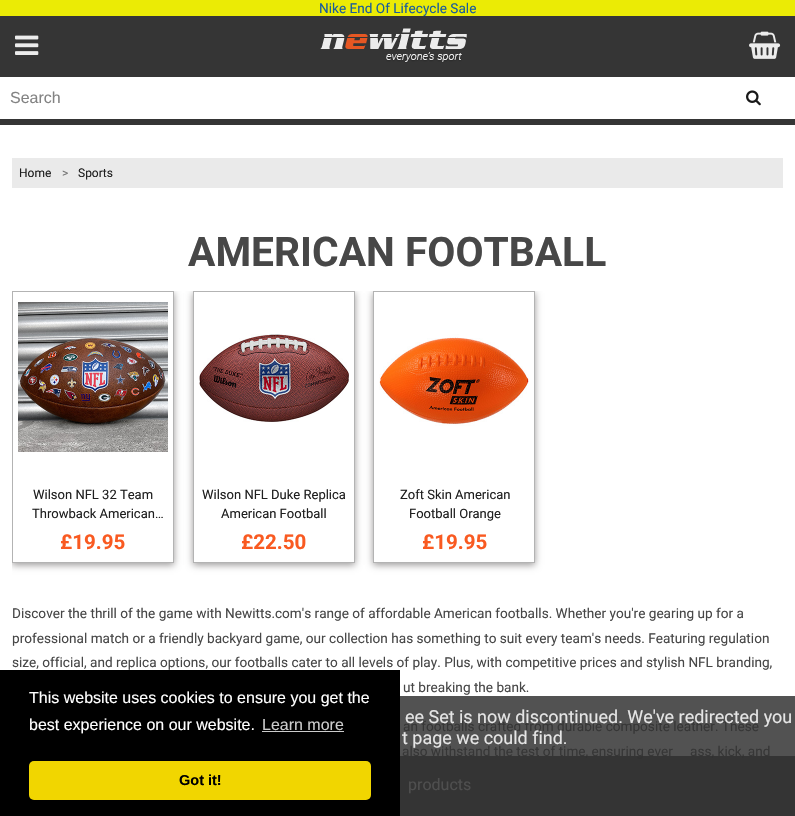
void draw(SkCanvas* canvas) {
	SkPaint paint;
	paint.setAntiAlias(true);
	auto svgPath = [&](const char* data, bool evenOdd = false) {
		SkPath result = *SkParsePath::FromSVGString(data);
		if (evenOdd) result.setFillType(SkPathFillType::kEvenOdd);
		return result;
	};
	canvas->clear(0xffffffff);
	paint.setColor(0xff525252);
	canvas->drawRect(SkRect::MakeXYWH(400, 696, 395, 120), paint);
	paint.setColor(0xff353535);
	canvas->drawRect(SkRect::MakeXYWH(0, 16, 795, 109), paint);
	paint.setColor(0xffebeb05);
	canvas->drawRect(SkRect::MakeXYWH(0, 0, 795, 16), paint);
	SkFont f1(fontMgr->matchFamilyStyle("Roboto", SkFontStyle::Normal()), 13.6);
	f1.setSubpixel(true);
	paint.setColor(0xff1a5d9c);
	canvas->drawString("Nike End Of Lifecycle Sale", 319, 13, f1, paint);
	canvas->drawImageRect(SkImages::DeferredFromEncodedData(SkData::MakeFromFileName("img1.png")), SkRect::MakeXYWH(15, 35, 24, 20), SkSamplingOptions());
	canvas->drawImageRect(SkImages::DeferredFromEncodedData(SkData::MakeFromFileName("img2.png")), SkRect::MakeXYWH(320, 28, 147, 35), SkSamplingOptions());
	canvas->drawImageRect(SkImages::DeferredFromEncodedData(SkData::MakeFromFileName("img3.png")), SkRect::MakeXYWH(749, 31, 32, 28), SkSamplingOptions());
	paint.setColor(0xffffffff);
	canvas->drawRect(SkRect::MakeXYWH(0, 77, 795, 42), paint);
	SkFont f2(fontMgr->matchFamilyStyle("Liberation Sans", SkFontStyle::Normal()), 16);
	f2.setSubpixel(true);
	paint.setColor(0xff838383);
	canvas->drawString("Search", 10, 103, f2, paint);
	canvas->drawImageRect(SkImages::DeferredFromEncodedData(SkData::MakeFromFileName("img4.png")), SkRect::MakeXYWH(746, 90, 15, 16), SkSamplingOptions());
	paint.setColor(0xffeaeaea);
	canvas->drawRect(SkRect::MakeXYWH(12, 158, 771, 30), paint);
	SkFont f3(fontMgr->matchFamilyStyle("Roboto", SkFontStyle::Normal()), 12);
	f3.setSubpixel(true);
	paint.setColor(0xff1f1f1f);
	canvas->drawString("Home", 19, 177, f3, paint);
	paint.setColor(0xff777777);
	canvas->drawString(">", 62, 177, f3, paint);
	paint.setColor(0xff1f1f1f);
	canvas->drawString("Sports", 78, 177, f3, paint);
	SkFont f4(fontMgr->matchFamilyStyle("Roboto", SkFontStyle::Bold()), 40.75);
	f4.setSubpixel(true);
	paint.setColor(0xff474747);
	canvas->drawString("AMERICAN FOOTBALL", 188, 266, f4, paint);
	canvas->save();
	canvas->clipRect(SkRect::MakeXYWH(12, 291, 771, 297));
	canvas->clipPath(svgPath("M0 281H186V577H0ZM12 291H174V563H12Z", true), true);
	paint.setColor(0xff9b9999);
	paint.setMaskFilter(SkMaskFilter::MakeBlur(kNormal_SkBlurStyle, 3.5));
	canvas->drawRect(SkRect::MakeXYWH(12, 293, 162, 272), paint);
	paint.setMaskFilter(nullptr);
	canvas->restore();
	paint.setStroke(true);
	paint.setStrokeWidth(1);
	paint.setColor(0xffb3b3b3);
	canvas->drawRect(SkRect::MakeXYWH(12.5, 291.5, 161, 271), paint);
	canvas->drawImageRect(SkImages::DeferredFromEncodedData(SkData::MakeFromFileName("img5.png")), SkRect::MakeXYWH(18, 302, 150, 150), SkSamplingOptions());
	SkFont f5(fontMgr->matchFamilyStyle("Roboto", SkFontStyle::Normal()), 13);
	f5.setSubpixel(true);
	paint.setStroke(false);
	paint.setColor(0xff1f1f1f);
	canvas->drawString("Wilson NFL 32 Team", 33, 499, f5, paint);
	canvas->drawString("Throwback American…", 32, 518, f5, paint);
	SkFont f6(fontMgr->matchFamilyStyle("Roboto", SkFontStyle::Bold()), 20.5);
	f6.setSubpixel(true);
	paint.setColor(0xfff95a21);
	canvas->drawString("£19.95", 60, 549, f6, paint);
	canvas->save();
	canvas->clipRect(SkRect::MakeXYWH(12, 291, 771, 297));
	canvas->clipPath(svgPath("M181 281H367V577H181ZM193 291H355V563H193Z", true), true);
	paint.setColor(0xff9b9999);
	paint.setMaskFilter(SkMaskFilter::MakeBlur(kNormal_SkBlurStyle, 3.5));
	canvas->drawRect(SkRect::MakeXYWH(193, 293, 162, 272), paint);
	paint.setMaskFilter(nullptr);
	canvas->restore();
	paint.setStroke(true);
	paint.setColor(0xffb3b3b3);
	canvas->drawRect(SkRect::MakeXYWH(193.5, 291.5, 161, 271), paint);
	canvas->drawImageRect(SkImages::DeferredFromEncodedData(SkData::MakeFromFileName("img6.png")), SkRect::MakeXYWH(199, 334, 150, 88), SkSamplingOptions());
	paint.setStroke(false);
	paint.setColor(0xff1f1f1f);
	canvas->drawString("Wilson NFL Duke Replica", 202, 499, f5, paint);
	canvas->drawString("American Football", 221, 518, f5, paint);
	paint.setColor(0xfff95a21);
	canvas->drawString("£22.50", 241, 549, f6, paint);
	canvas->save();
	canvas->clipRect(SkRect::MakeXYWH(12, 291, 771, 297));
	canvas->clipPath(svgPath("M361 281H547V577H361ZM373 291H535V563H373Z", true), true);
	paint.setColor(0xff9b9999);
	paint.setMaskFilter(SkMaskFilter::MakeBlur(kNormal_SkBlurStyle, 3.5));
	canvas->drawRect(SkRect::MakeXYWH(373, 293, 162, 272), paint);
	paint.setMaskFilter(nullptr);
	canvas->restore();
	paint.setStroke(true);
	paint.setColor(0xffb3b3b3);
	canvas->drawRect(SkRect::MakeXYWH(373.5, 291.5, 161, 271), paint);
	canvas->drawImageRect(SkImages::DeferredFromEncodedData(SkData::MakeFromFileName("img7.png")), SkRect::MakeXYWH(379, 334, 150, 92), SkSamplingOptions());
	paint.setStroke(false);
	paint.setColor(0xff1f1f1f);
	canvas->drawString("Zoft Skin American", 400, 499, f5, paint);
	canvas->drawString("Football Orange", 409, 518, f5, paint);
	paint.setColor(0xfff95a21);
	canvas->drawString("£19.95", 422, 549, f6, paint);
	paint.setColor(0xff474747);
	canvas->drawString("Discover the thrill of the game with Newitts.com's range of affordable American footballs. Whether you're gearing up for a", 12, 618, f1, paint);
	canvas->drawString("professional match or a friendly backyard game, our collection has something to suit every team's needs. Featuring regulation", 12, 643, f1, paint);
	canvas->drawString("size, official, and replica options, our footballs cater to all levels of play. Plus, with competitive prices and stylish NFL branding,", 12, 667, f1, paint);
	canvas->drawString("ut breaking the bank.", 403, 692, f1, paint);
	paint.setColor(0xff363636);
	canvas->drawString("an footballs crafted from durable composite leather. These", 403, 731, f1, paint);
	canvas->drawString("also withstand the test of time, ensuring ever", 402, 756, f1, paint);
	canvas->drawString("ass, kick, and", 690, 756, f1, paint);
	paint.setColor(0xff000000);
	canvas->drawRect(SkRect::MakeXYWH(0, 670, 400, 146), paint);
	paint.setColor(0xffffffff);
	canvas->drawString("This website uses cookies to ensure you get the", 29, 703, f2, paint);
	canvas->drawString("best experience on our website.", 29, 730, f2, paint);
	paint.setColor(0xffcccccc);
	canvas->drawString("Learn more", 262, 730, f2, paint);
	canvas->drawRect(SkRect::MakeXYWH(262, 731, 82, 1), paint);
	paint.setColor(0xfff1d600);
	canvas->drawRoundRect(SkRect::MakeXYWH(29, 761, 342, 39), 5, 5, paint);
	SkFont f7(fontMgr->matchFamilyStyle("Liberation Sans", SkFontStyle::Bold()), 14.5);
	f7.setSubpixel(true);
	paint.setColor(0xff000000);
	canvas->drawString("Got it!", 179, 785, f7, paint);
	SkFont f8(fontMgr->matchFamilyStyle("Roboto", SkFontStyle::Normal()), 17.95);
	f8.setSubpixel(true);
	paint.setColor(0xffe5e5e5);
	canvas->drawString("ee Set is now discontinued. We've redirected you", 405, 723, f8, paint);
	canvas->drawString("t page we could find.", 402, 744, f8, paint);
	paint.setColor(0xe6303030);
	canvas->drawRect(SkRect::MakeXYWH(400, 756, 395, 60), paint);
	SkFont f9(fontMgr->matchFamilyStyle("Roboto", SkFontStyle::Normal()), 16);
	f9.setSubpixel(true);
	paint.setColor(0xff4f4f4f);
	canvas->drawString("products", 408, 790, f9, paint);
}
